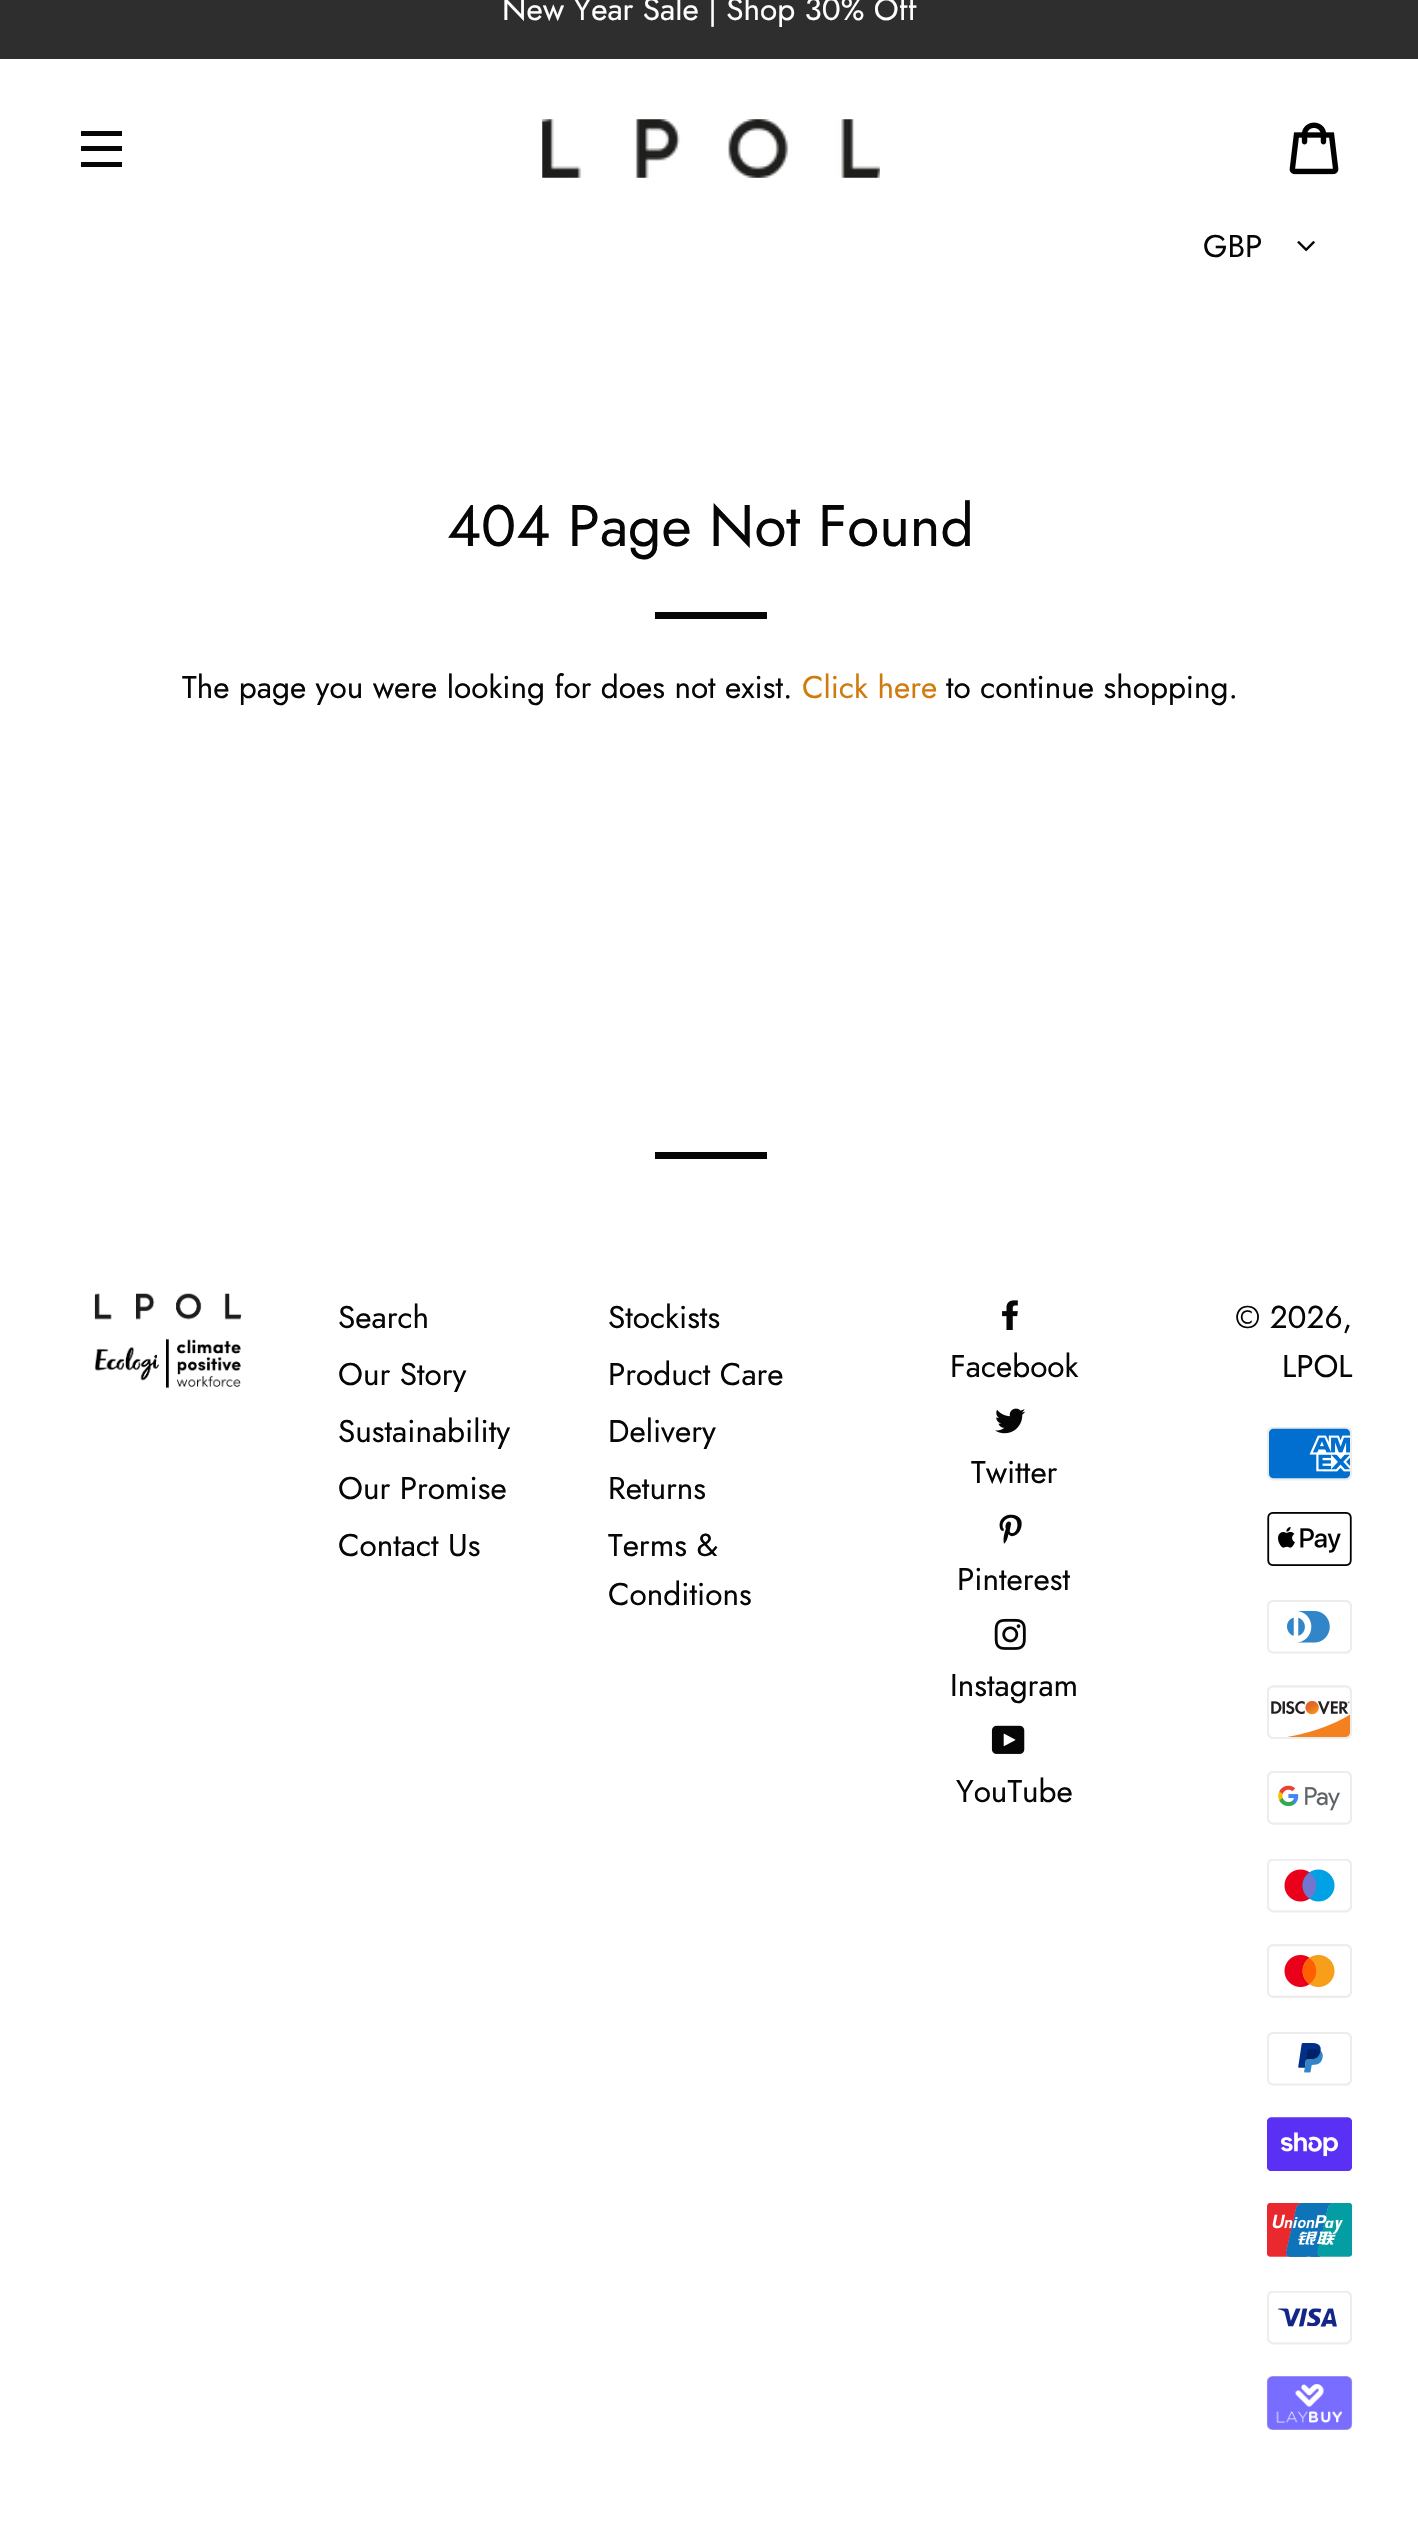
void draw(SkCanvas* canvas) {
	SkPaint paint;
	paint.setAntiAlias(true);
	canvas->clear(0xffffffff);
	paint.setColor(0xff2e2e2e);
	canvas->drawRect(SkRect::MakeXYWH(0, 0, 1418, 59), paint);
	SkFont f1(fontMgr->matchFamilyStyle("Jost", SkFontStyle::Normal()), 31.5);
	f1.setSubpixel(true);
	paint.setColor(0xffffffff);
	canvas->drawString("New Year Sale | Shop 30% Off", 502, 20, f1, paint);
	paint.setColor(0xff060606);
	canvas->drawRect(SkRect::MakeXYWH(81, 131, 41, 5), paint);
	canvas->drawRect(SkRect::MakeXYWH(81, 146, 41, 5), paint);
	canvas->drawRect(SkRect::MakeXYWH(81, 162, 41, 5), paint);
	canvas->drawImageRect(SkImages::DeferredFromEncodedData(SkData::MakeFromFileName("img1.png")), SkRect::MakeXYWH(542, 119, 338, 59), SkSamplingOptions());
	canvas->drawImageRect(SkImages::DeferredFromEncodedData(SkData::MakeFromFileName("img2.png")), SkRect::MakeXYWH(1289, 122, 50, 53), SkSamplingOptions());
	canvas->drawString("GBP", 1203, 257, f1, paint);
	canvas->drawImageRect(SkImages::DeferredFromEncodedData(SkData::MakeFromFileName("img3.png")), SkRect::MakeXYWH(1297, 241, 18, 11), SkSamplingOptions());
	SkFont f2(fontMgr->matchFamilyStyle("Jost", SkFontStyle::Normal()), 58.5);
	f2.setSubpixel(true);
	canvas->drawString("404 Page Not Found", 447, 546, f2, paint);
	canvas->drawRect(SkRect::MakeXYWH(655, 612, 112, 7), paint);
	canvas->drawString("The page you were looking for does not exist.", 182, 698, f1, paint);
	paint.setColor(0xffd17b0e);
	canvas->drawString("Click here", 802, 698, f1, paint);
	paint.setColor(0xff060606);
	canvas->drawString("to continue shopping.", 946, 698, f1, paint);
	canvas->drawRect(SkRect::MakeXYWH(655, 1152, 112, 7), paint);
	canvas->drawImageRect(SkImages::DeferredFromEncodedData(SkData::MakeFromFileName("img4.png")), SkRect::MakeXYWH(94, 1293, 148, 95), SkSamplingOptions());
	canvas->drawString("Search", 338, 1328, f1, paint);
	canvas->drawString("Our Story", 338, 1385, f1, paint);
	canvas->drawString("Sustainability", 338, 1442, f1, paint);
	canvas->drawString("Our Promise", 338, 1499, f1, paint);
	canvas->drawString("Contact Us", 338, 1556, f1, paint);
	canvas->drawString("Stockists", 608, 1328, f1, paint);
	canvas->drawString("Product Care", 608, 1385, f1, paint);
	canvas->drawString("Delivery", 608, 1442, f1, paint);
	canvas->drawString("Returns", 608, 1499, f1, paint);
	canvas->drawString("Terms &", 608, 1556, f1, paint);
	canvas->drawString("Conditions", 608, 1605, f1, paint);
	canvas->drawString("© 2026,", 1235, 1328, f1, paint);
	canvas->drawString("LPOL", 1282, 1377, f1, paint);
	canvas->drawImageRect(SkImages::DeferredFromEncodedData(SkData::MakeFromFileName("img5.png")), SkRect::MakeXYWH(1267, 1427, 85, 54), SkSamplingOptions());
	canvas->drawImageRect(SkImages::DeferredFromEncodedData(SkData::MakeFromFileName("img6.png")), SkRect::MakeXYWH(1267, 1512, 85, 54), SkSamplingOptions());
	canvas->drawImageRect(SkImages::DeferredFromEncodedData(SkData::MakeFromFileName("img7.png")), SkRect::MakeXYWH(1267, 1600, 85, 54), SkSamplingOptions());
	canvas->drawImageRect(SkImages::DeferredFromEncodedData(SkData::MakeFromFileName("img8.png")), SkRect::MakeXYWH(1267, 1685, 85, 54), SkSamplingOptions());
	canvas->drawImageRect(SkImages::DeferredFromEncodedData(SkData::MakeFromFileName("img9.png")), SkRect::MakeXYWH(1267, 1771, 85, 54), SkSamplingOptions());
	canvas->drawImageRect(SkImages::DeferredFromEncodedData(SkData::MakeFromFileName("img10.png")), SkRect::MakeXYWH(1267, 1859, 85, 54), SkSamplingOptions());
	canvas->drawImageRect(SkImages::DeferredFromEncodedData(SkData::MakeFromFileName("img11.png")), SkRect::MakeXYWH(1267, 1944, 85, 54), SkSamplingOptions());
	canvas->drawImageRect(SkImages::DeferredFromEncodedData(SkData::MakeFromFileName("img12.png")), SkRect::MakeXYWH(1267, 2032, 85, 54), SkSamplingOptions());
	canvas->drawImageRect(SkImages::DeferredFromEncodedData(SkData::MakeFromFileName("img13.png")), SkRect::MakeXYWH(1267, 2117, 85, 54), SkSamplingOptions());
	canvas->drawImageRect(SkImages::DeferredFromEncodedData(SkData::MakeFromFileName("img14.png")), SkRect::MakeXYWH(1267, 2203, 85, 54), SkSamplingOptions());
	canvas->drawImageRect(SkImages::DeferredFromEncodedData(SkData::MakeFromFileName("img15.png")), SkRect::MakeXYWH(1267, 2291, 85, 54), SkSamplingOptions());
	canvas->drawImageRect(SkImages::DeferredFromEncodedData(SkData::MakeFromFileName("img16.png")), SkRect::MakeXYWH(1266, 2376, 87, 54), SkSamplingOptions());
	canvas->drawImageRect(SkImages::DeferredFromEncodedData(SkData::MakeFromFileName("img17.png")), SkRect::MakeXYWH(1002, 1300, 16, 30), SkSamplingOptions());
	canvas->drawString("Facebook", 950, 1377, f1, paint);
	canvas->drawImageRect(SkImages::DeferredFromEncodedData(SkData::MakeFromFileName("img18.png")), SkRect::MakeXYWH(995, 1408, 31, 26), SkSamplingOptions());
	canvas->drawString("Twitter", 971, 1483, f1, paint);
	canvas->drawImageRect(SkImages::DeferredFromEncodedData(SkData::MakeFromFileName("img19.png")), SkRect::MakeXYWH(999, 1514, 23, 30), SkSamplingOptions());
	canvas->drawString("Pinterest", 957, 1590, f1, paint);
	canvas->drawImageRect(SkImages::DeferredFromEncodedData(SkData::MakeFromFileName("img20.png")), SkRect::MakeXYWH(994, 1618, 32, 32), SkSamplingOptions());
	canvas->drawString("Instagram", 950, 1696, f1, paint);
	canvas->drawImageRect(SkImages::DeferredFromEncodedData(SkData::MakeFromFileName("img21.png")), SkRect::MakeXYWH(991, 1725, 34, 29), SkSamplingOptions());
	canvas->drawString("YouTube", 956, 1802, f1, paint);
}
